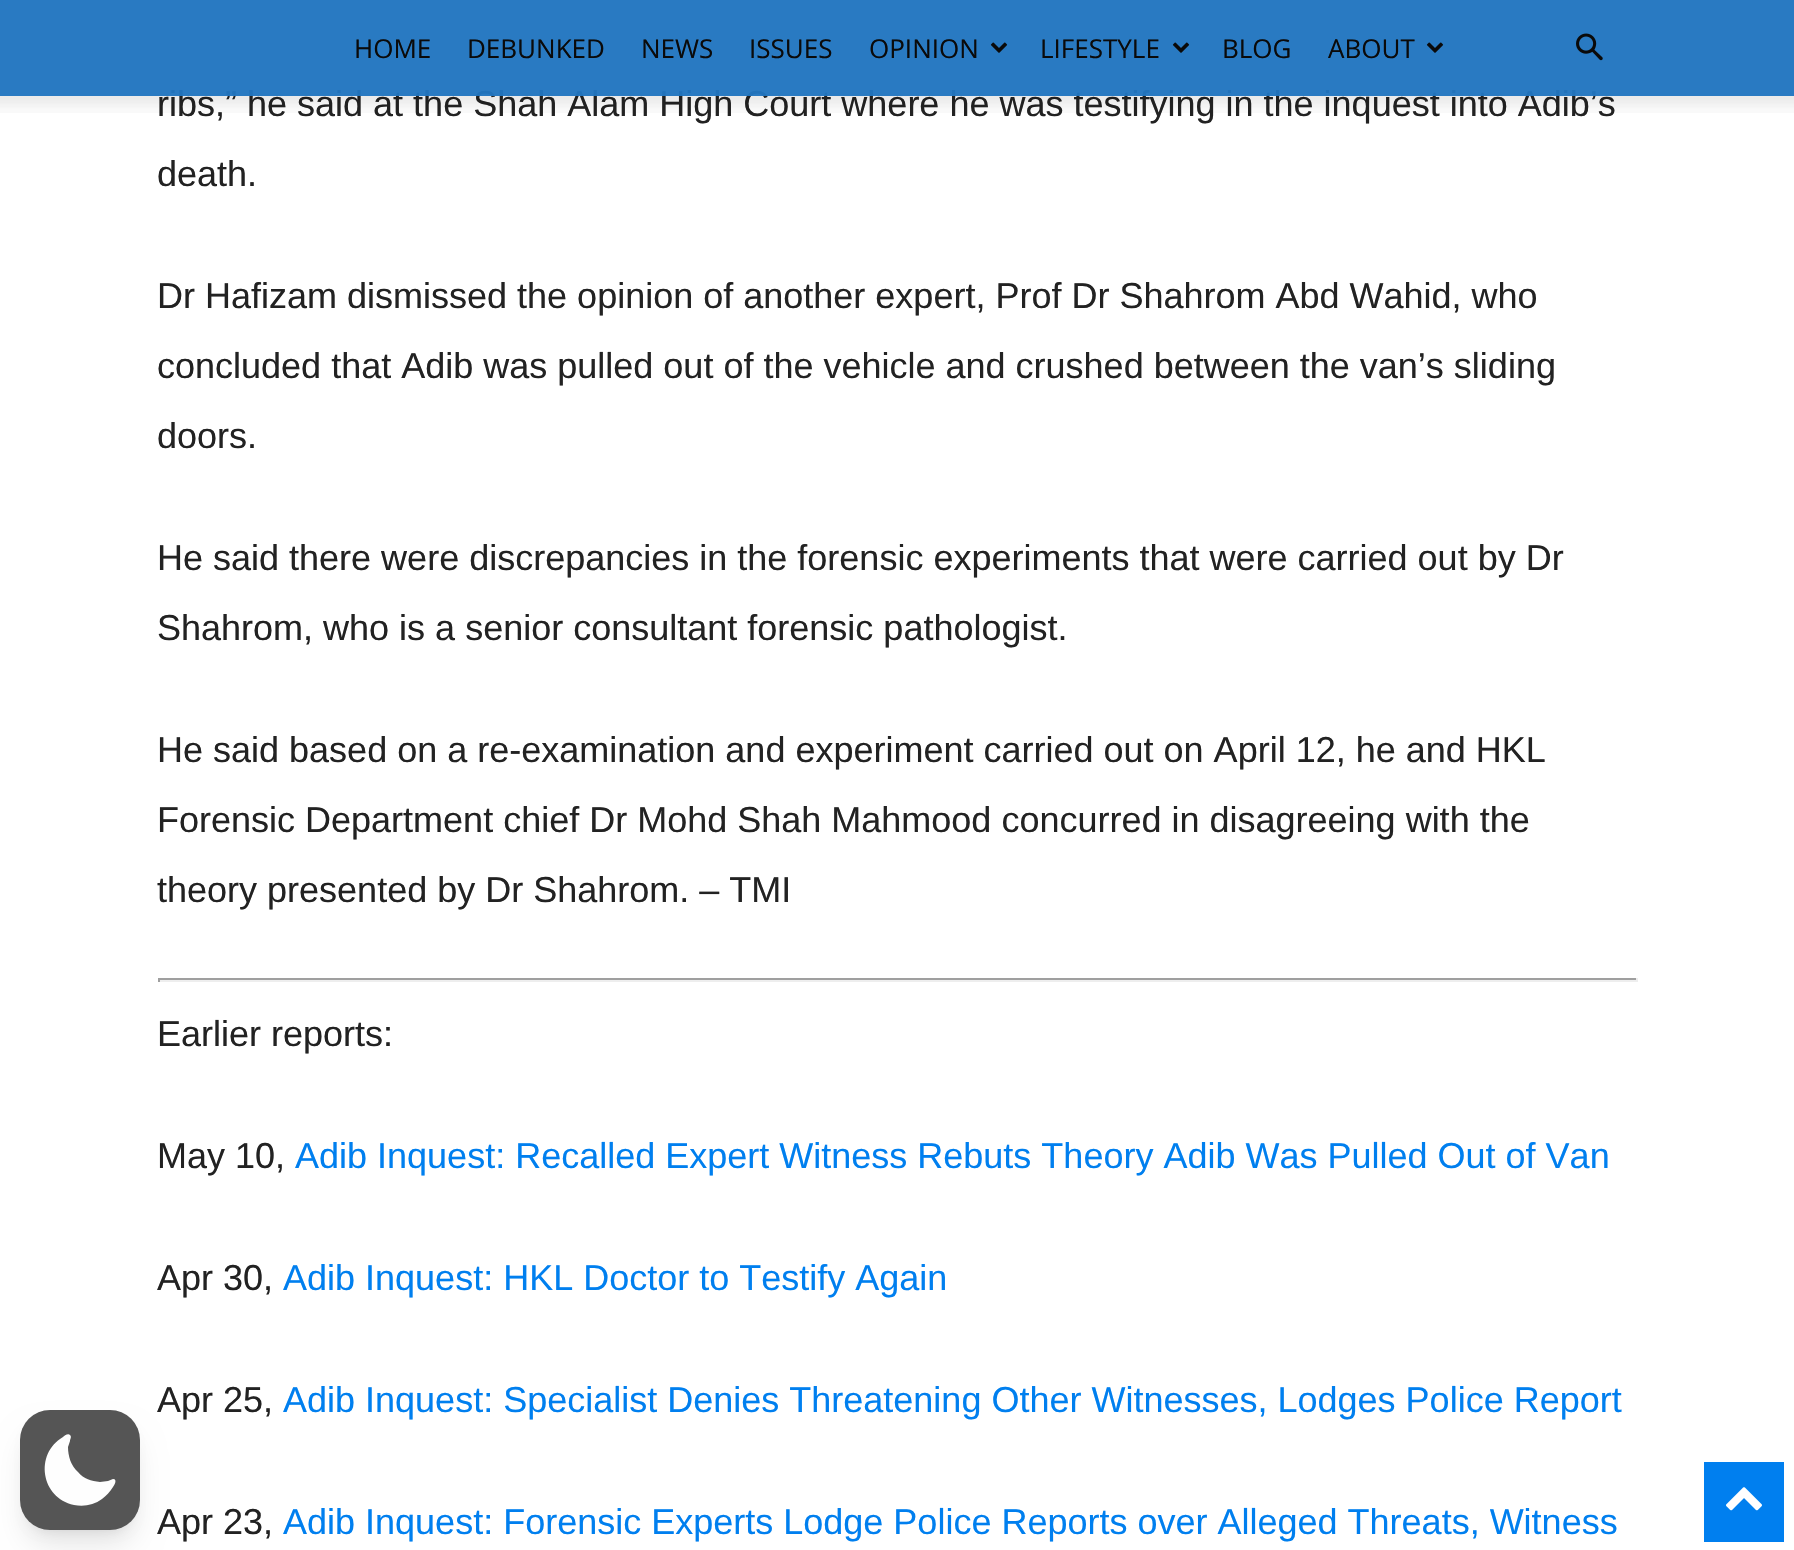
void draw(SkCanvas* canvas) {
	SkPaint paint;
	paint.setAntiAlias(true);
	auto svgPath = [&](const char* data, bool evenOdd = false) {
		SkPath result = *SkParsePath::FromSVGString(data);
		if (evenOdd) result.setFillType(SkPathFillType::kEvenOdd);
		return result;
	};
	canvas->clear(0xffffffff);
	paint.setColor(0x1a000000);
	paint.setMaskFilter(SkMaskFilter::MakeBlur(kNormal_SkBlurStyle, 6));
	canvas->drawRoundRect(SkRect::MakeXYWH(28, 1426, 104, 104), 22, 22, paint);
	paint.setMaskFilter(nullptr);
	paint.setMaskFilter(SkMaskFilter::MakeBlur(kNormal_SkBlurStyle, 15));
	canvas->drawRoundRect(SkRect::MakeXYWH(26, 1436, 108, 108), 24, 24, paint);
	paint.setMaskFilter(nullptr);
	paint.setColor(0xff555555);
	canvas->drawRoundRect(SkRect::MakeXYWH(20, 1410, 120, 120), 30, 30, paint);
	paint.setColor(0xfffefefe);
	canvas->drawPath(svgPath("M70 1435C72 1437 70 1439 70 1441L68 1447C68 1456 71 1466 78 1472C84 1479 91 1481 100 1482L108 1481L113 1479C118 1479 114 1486 113 1487C110 1492 106 1496 102 1499C94 1505 84 1507 74 1505C41 1498 34 1454 63 1437C64 1436 68 1433 70 1435Z", true), paint);
	SkFont f1(fontMgr->matchFamilyStyle("Liberation Sans", SkFontStyle::Normal()), 36);
	f1.setSubpixel(true);
	paint.setColor(0xff222222);
	canvas->drawString("ribs,” he said at the Shah Alam High Court where he was testifying in the inquest into Adib’s", 157, 116, f1, paint);
	paint.setColor(0xf52075bf);
	canvas->drawRect(SkRect::MakeXYWH(0, 0, 1794, 96), paint);
	SkFont f2(fontMgr->matchFamilyStyle("Open Sans", SkFontStyle::Normal()), 26);
	f2.setSubpixel(true);
	paint.setColor(0xff0a0a0a);
	canvas->drawString("HOME", 354, 58, f2, paint);
	canvas->drawString("DEBUNKED", 467, 58, f2, paint);
	canvas->drawString("NEWS", 641, 58, f2, paint);
	canvas->drawString("ISSUES", 749, 58, f2, paint);
	canvas->drawString("OPINION", 869, 58, f2, paint);
	canvas->drawImageRect(SkImages::DeferredFromEncodedData(SkData::MakeFromFileName("img1.png")), SkRect::MakeXYWH(990, 42, 18, 11), SkSamplingOptions());
	canvas->drawString("LIFESTYLE", 1040, 58, f2, paint);
	canvas->drawImageRect(SkImages::DeferredFromEncodedData(SkData::MakeFromFileName("img2.png")), SkRect::MakeXYWH(1172, 42, 18, 11), SkSamplingOptions());
	canvas->drawString("BLOG", 1222, 58, f2, paint);
	canvas->drawString("ABOUT", 1328, 58, f2, paint);
	canvas->drawImageRect(SkImages::DeferredFromEncodedData(SkData::MakeFromFileName("img3.png")), SkRect::MakeXYWH(1426, 42, 18, 11), SkSamplingOptions());
	canvas->drawImageRect(SkImages::DeferredFromEncodedData(SkData::MakeFromFileName("img4.png")), SkRect::MakeXYWH(1576, 33, 27, 28), SkSamplingOptions());
	canvas->drawImageRect(SkImages::DeferredFromEncodedData(SkData::MakeFromFileName("img5.png")), SkRect::MakeXYWH(0, 96, 1794, 17), SkSamplingOptions());
	paint.setColor(0xff222222);
	canvas->drawString("death.", 157, 186, f1, paint);
	canvas->drawString("Dr Hafizam dismissed the opinion of another expert, Prof Dr Shahrom Abd Wahid, who", 157, 308, f1, paint);
	canvas->drawString("concluded that Adib was pulled out of the vehicle and crushed between the van’s sliding", 157, 378, f1, paint);
	canvas->drawString("doors.", 157, 448, f1, paint);
	canvas->drawString("He said there were discrepancies in the forensic experiments that were carried out by Dr", 157, 570, f1, paint);
	canvas->drawString("Shahrom, who is a senior consultant forensic pathologist.", 157, 640, f1, paint);
	canvas->drawString("He said based on a re-examination and experiment carried out on April 12, he and HKL", 157, 762, f1, paint);
	canvas->drawString("Forensic Department chief Dr Mohd Shah Mahmood concurred in disagreeing with the", 157, 832, f1, paint);
	canvas->drawString("theory presented by Dr Shahrom. – TMI", 157, 902, f1, paint);
	paint.setColor(0xff9f9f9f);
	canvas->drawRect(SkRect::MakeXYWH(158, 978, 1480, 2), paint);
	paint.setColor(0xffeeeeee);
	canvas->drawRect(SkRect::MakeXYWH(1636, 978, 2, 4), paint);
	canvas->drawRect(SkRect::MakeXYWH(158, 980, 1480, 2), paint);
	paint.setColor(0xff9f9f9f);
	canvas->drawRect(SkRect::MakeXYWH(158, 978, 2, 4), paint);
	paint.setColor(0xff222222);
	canvas->drawString("Earlier reports:", 157, 1046, f1, paint);
	canvas->drawString("May 10,", 157, 1168, f1, paint);
	paint.setColor(0xff007fef);
	canvas->drawString("Adib Inquest: Recalled Expert Witness Rebuts Theory Adib Was Pulled Out of Van", 295, 1168, f1, paint);
	paint.setColor(0xff222222);
	canvas->drawString("Apr 30,", 157, 1290, f1, paint);
	paint.setColor(0xff007fef);
	canvas->drawString("Adib Inquest: HKL Doctor to Testify Again", 283, 1290, f1, paint);
	paint.setColor(0xff222222);
	canvas->drawString("Apr 25,", 157, 1412, f1, paint);
	paint.setColor(0xff007fef);
	canvas->drawString("Adib Inquest: Specialist Denies Threatening Other Witnesses, Lodges Police Report", 283, 1412, f1, paint);
	paint.setColor(0xff222222);
	canvas->drawString("Apr 23,", 157, 1534, f1, paint);
	paint.setColor(0xff007fef);
	canvas->drawString("Adib Inquest: Forensic Experts Lodge Police Reports over Alleged Threats, Witness", 283, 1534, f1, paint);
	canvas->drawRect(SkRect::MakeXYWH(1704, 1462, 80, 80), paint);
	canvas->drawImageRect(SkImages::DeferredFromEncodedData(SkData::MakeFromFileName("img6.png")), SkRect::MakeXYWH(1726, 1487, 36, 24), SkSamplingOptions());
}
